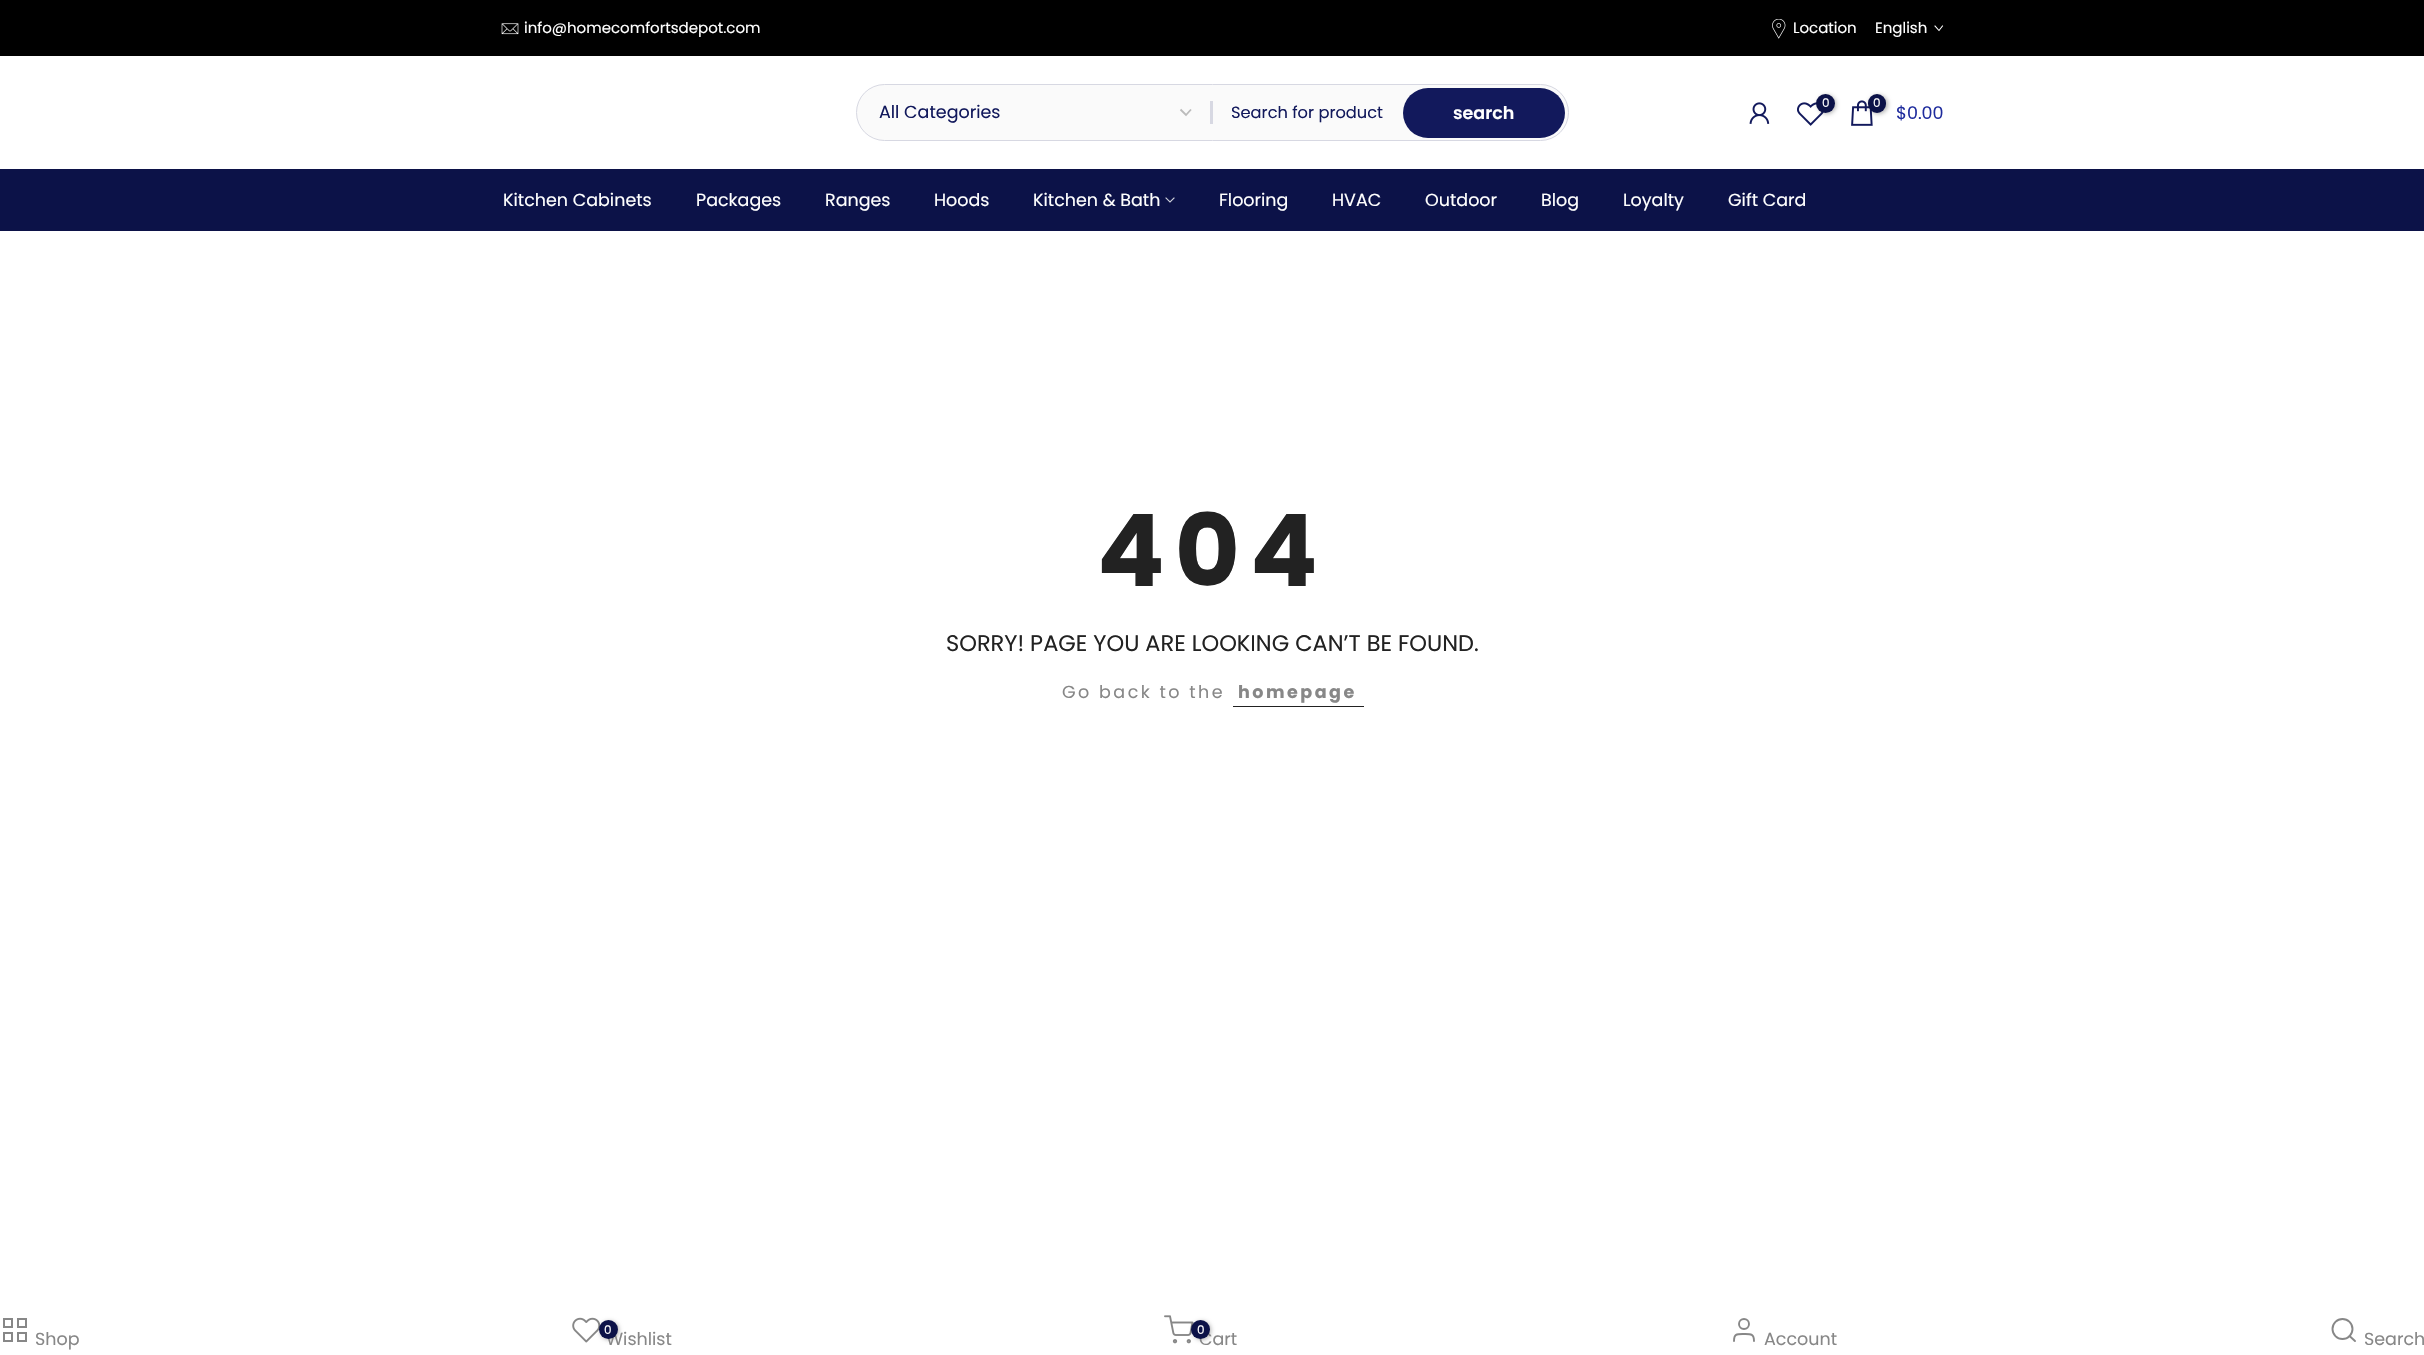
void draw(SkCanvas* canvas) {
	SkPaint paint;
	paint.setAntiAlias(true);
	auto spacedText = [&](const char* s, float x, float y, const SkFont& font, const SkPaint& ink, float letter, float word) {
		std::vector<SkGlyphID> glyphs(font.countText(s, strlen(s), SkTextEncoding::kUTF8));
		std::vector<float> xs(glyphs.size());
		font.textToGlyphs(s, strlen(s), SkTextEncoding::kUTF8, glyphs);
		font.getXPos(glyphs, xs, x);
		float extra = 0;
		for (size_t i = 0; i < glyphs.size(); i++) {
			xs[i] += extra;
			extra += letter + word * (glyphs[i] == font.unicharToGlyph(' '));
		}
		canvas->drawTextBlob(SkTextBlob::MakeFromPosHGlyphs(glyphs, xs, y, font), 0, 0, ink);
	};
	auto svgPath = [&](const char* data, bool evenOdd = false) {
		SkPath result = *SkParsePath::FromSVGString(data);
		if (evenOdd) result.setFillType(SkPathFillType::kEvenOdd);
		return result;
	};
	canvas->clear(0xffffffff);
	paint.setColor(0xff000000);
	canvas->drawRect(SkRect::MakeXYWH(0, 0, 2424, 56), paint);
	canvas->drawImageRect(SkImages::DeferredFromEncodedData(SkData::MakeFromFileName("img1.png")), SkRect::MakeXYWH(501, 23, 18, 12), SkSamplingOptions());
	SkFont f1(fontMgr->matchFamilyStyle("Poppins", SkFontStyle::Normal()), 15);
	f1.setSubpixel(true);
	paint.setColor(0xffffffff);
	canvas->drawString("info@homecomfortsdepot.com", 524, 33, f1, paint);
	canvas->drawImageRect(SkImages::DeferredFromEncodedData(SkData::MakeFromFileName("img2.png")), SkRect::MakeXYWH(1772, 19, 14, 20), SkSamplingOptions());
	canvas->drawString("Location", 1793, 33, f1, paint);
	canvas->drawString("English", 1875, 33, f1, paint);
	paint.setStroke(true);
	paint.setStrokeWidth(1.1);
	paint.setStrokeCap(SkPaint::kSquare_Cap);
	canvas->drawPath(svgPath("M1942.5 26L1939 30.5L1935 26"), paint);
	paint.setStroke(false);
	paint.setColor(0xfffafafa);
	canvas->drawRoundRect(SkRect::MakeXYWH(856.5, 84.5, 712, 56), 28, 28, paint);
	paint.setStroke(true);
	paint.setStrokeWidth(1);
	paint.setStrokeCap(SkPaint::kButt_Cap);
	paint.setColor(0xffd7d8e2);
	canvas->drawRoundRect(SkRect::MakeXYWH(856.5, 84.5, 712, 56), 28, 28, paint);
	paint.setStrokeWidth(1.8);
	paint.setColor(0xffbbbbbb);
	canvas->drawPath(svgPath("M1180.5 109.5L1186 115L1191 109.5"), paint);
	SkFont f2(fontMgr->matchFamilyStyle("Poppins", SkFontStyle::Normal()), 17.5);
	f2.setSubpixel(true);
	paint.setStroke(false);
	paint.setColor(0xff12195c);
	canvas->drawString("All Categories", 879, 118, f2, paint);
	paint.setColor(0xffd7d8e2);
	canvas->drawRect(SkRect::MakeXYWH(1210, 101, 3, 23), paint);
	SkFont f3(fontMgr->matchFamilyStyle("Poppins", SkFontStyle::Normal()), 16.25);
	f3.setSubpixel(true);
	paint.setColor(0xff12195c);
	canvas->drawString("Search for product", 1231, 118, f3, paint);
	canvas->drawRoundRect(SkRect::MakeXYWH(1403, 88, 162, 50), 25, 25, paint);
	SkFont f4(fontMgr->matchFamilyStyle("Poppins", SkFontStyle(600, SkFontStyle::kNormal_Width, SkFontStyle::kUpright_Slant)), 17.5);
	f4.setSubpixel(true);
	paint.setColor(0xffffffff);
	canvas->drawString("search", 1453, 119, f4, paint);
	canvas->drawImageRect(SkImages::DeferredFromEncodedData(SkData::MakeFromFileName("img3.png")), SkRect::MakeXYWH(1749, 102, 21, 22), SkSamplingOptions());
	canvas->drawImageRect(SkImages::DeferredFromEncodedData(SkData::MakeFromFileName("img4.png")), SkRect::MakeXYWH(1797, 102, 27, 24), SkSamplingOptions());
	paint.setColor(0x4d000000);
	paint.setMaskFilter(SkMaskFilter::MakeBlur(kNormal_SkBlurStyle, 2));
	canvas->drawRoundRect(SkRect::MakeXYWH(1818, 95, 18, 19), 9, 9, paint);
	paint.setMaskFilter(nullptr);
	paint.setColor(0xff0c1248);
	canvas->drawCircle(1825.5, 103.5, 9.5, paint);
	SkFont f5(fontMgr->matchFamilyStyle("Poppins", SkFontStyle::Normal()), 12);
	f5.setSubpixel(true);
	paint.setColor(0xffffffff);
	canvas->drawString("0", 1822, 107, f5, paint);
	canvas->drawImageRect(SkImages::DeferredFromEncodedData(SkData::MakeFromFileName("img5.png")), SkRect::MakeXYWH(1851, 100, 22, 26), SkSamplingOptions());
	paint.setColor(0x4d000000);
	paint.setMaskFilter(SkMaskFilter::MakeBlur(kNormal_SkBlurStyle, 2));
	canvas->drawRoundRect(SkRect::MakeXYWH(1869, 95, 19, 19), 9.5, 9.5, paint);
	paint.setMaskFilter(nullptr);
	paint.setColor(0xff0c1248);
	canvas->drawRoundRect(SkRect::MakeXYWH(1868, 94, 18, 19), 9, 9, paint);
	paint.setColor(0xffffffff);
	canvas->drawString("0", 1873, 107, f5, paint);
	paint.setColor(0xff1e2b9d);
	canvas->drawString("$0.00", 1896, 119, f2, paint);
	paint.setColor(0xff0c1248);
	canvas->drawRect(SkRect::MakeXYWH(0, 169, 2424, 62), paint);
	paint.setColor(0xffffffff);
	canvas->drawString("Kitchen Cabinets", 503, 206, f2, paint);
	canvas->drawString("Packages", 696, 206, f2, paint);
	canvas->drawString("Ranges", 825, 206, f2, paint);
	canvas->drawString("Hoods", 934, 206, f2, paint);
	canvas->drawString("Kitchen & Bath", 1033, 206, f2, paint);
	paint.setStroke(true);
	paint.setStrokeWidth(1.1);
	paint.setStrokeCap(SkPaint::kSquare_Cap);
	paint.setColor(0xffced0da);
	canvas->drawPath(svgPath("M1174 198L1170 202L1166 198"), paint);
	paint.setStroke(false);
	paint.setColor(0xffffffff);
	canvas->drawString("Flooring", 1219, 206, f2, paint);
	canvas->drawString("HVAC", 1332, 206, f2, paint);
	canvas->drawString("Outdoor", 1425, 206, f2, paint);
	canvas->drawString("Blog", 1541, 206, f2, paint);
	canvas->drawString("Loyalty", 1623, 206, f2, paint);
	canvas->drawString("Gift Card", 1728, 206, f2, paint);
	SkFont f6(fontMgr->matchFamilyStyle("Poppins", SkFontStyle::Bold()), 100);
	f6.setSubpixel(true);
	paint.setColor(0xff222222);
	spacedText("404", 1097, 586, f6, paint, 10, 0);
	SkFont f7(fontMgr->matchFamilyStyle("Poppins", SkFontStyle::Normal()), 22.5);
	f7.setSubpixel(true);
	canvas->drawString("SORRY! PAGE YOU ARE LOOKING CAN’T BE FOUND.", 946, 651, f7, paint);
	paint.setColor(0xff878787);
	spacedText("Go back to the", 1062, 698, f2, paint, 2.5, 0);
	SkFont f8(fontMgr->matchFamilyStyle("Poppins", SkFontStyle::Bold()), 17.5);
	f8.setSubpixel(true);
	spacedText("homepage", 1238, 698, f8, paint, 2.5, 0);
	paint.setColor(0xff222222);
	canvas->drawRect(SkRect::MakeXYWH(1233, 706, 131, 1), paint);
	paint.setColor(0xff878787);
	canvas->drawString("Shop", 35, 1345, f2, paint);
	paint.setStroke(true);
	paint.setStrokeWidth(2);
	paint.setStrokeCap(SkPaint::kButt_Cap);
	canvas->drawRect(SkRect::MakeXYWH(4, 1319, 8, 8), paint);
	canvas->drawRect(SkRect::MakeXYWH(18, 1319, 8, 8), paint);
	canvas->drawRect(SkRect::MakeXYWH(18, 1333, 8, 8), paint);
	canvas->drawRect(SkRect::MakeXYWH(4, 1333, 8, 8), paint);
	canvas->drawImageRect(SkImages::DeferredFromEncodedData(SkData::MakeFromFileName("img6.png")), SkRect::MakeXYWH(572, 1317, 29, 26), SkSamplingOptions());
	paint.setStroke(false);
	paint.setColor(0x4d000000);
	paint.setMaskFilter(SkMaskFilter::MakeBlur(kNormal_SkBlurStyle, 2));
	canvas->drawRoundRect(SkRect::MakeXYWH(600, 1321, 19, 19), 9.5, 9.5, paint);
	paint.setMaskFilter(nullptr);
	paint.setColor(0xff878787);
	canvas->drawString("Wishlist", 606, 1345, f2, paint);
	paint.setColor(0xff0c1248);
	canvas->drawCircle(608.5, 1329.5, 9.5, paint);
	paint.setColor(0xffffffff);
	canvas->drawString("0", 604, 1334, f5, paint);
	canvas->drawImageRect(SkImages::DeferredFromEncodedData(SkData::MakeFromFileName("img7.png")), SkRect::MakeXYWH(1164, 1315, 30, 29), SkSamplingOptions());
	paint.setColor(0x4d000000);
	paint.setMaskFilter(SkMaskFilter::MakeBlur(kNormal_SkBlurStyle, 2));
	canvas->drawRoundRect(SkRect::MakeXYWH(1193, 1321, 18, 19), 9, 9, paint);
	paint.setMaskFilter(nullptr);
	paint.setColor(0xff878787);
	canvas->drawString("Cart", 1199, 1345, f2, paint);
	paint.setColor(0xff0c1248);
	canvas->drawCircle(1200.5, 1329.5, 9.5, paint);
	paint.setColor(0xffffffff);
	canvas->drawString("0", 1197, 1334, f5, paint);
	paint.setColor(0xff878787);
	canvas->drawString("Account", 1764, 1345, f2, paint);
	paint.setStroke(true);
	paint.setStrokeWidth(1.9);
	paint.setStrokeCap(SkPaint::kRound_Cap);
	paint.setStrokeJoin(SkPaint::kRound_Join);
	canvas->drawPath(svgPath("M1754 1341C1754 1333.5 1750.5 1334 1744 1334C1737 1334 1734 1333.5 1734 1341"), paint);
	paint.setStrokeCap(SkPaint::kButt_Cap);
	paint.setStrokeJoin(SkPaint::kMiter_Join);
	canvas->drawCircle(1744, 1324, 5, paint);
	paint.setStroke(false);
	canvas->drawString("Search", 2364, 1345, f2, paint);
	paint.setStroke(true);
	canvas->drawCircle(2342.5, 1329, 10, paint);
	paint.setStrokeCap(SkPaint::kRound_Cap);
	paint.setStrokeJoin(SkPaint::kRound_Join);
	canvas->drawPath(svgPath("M2355 1341L2349.5 1336"), paint);
}
